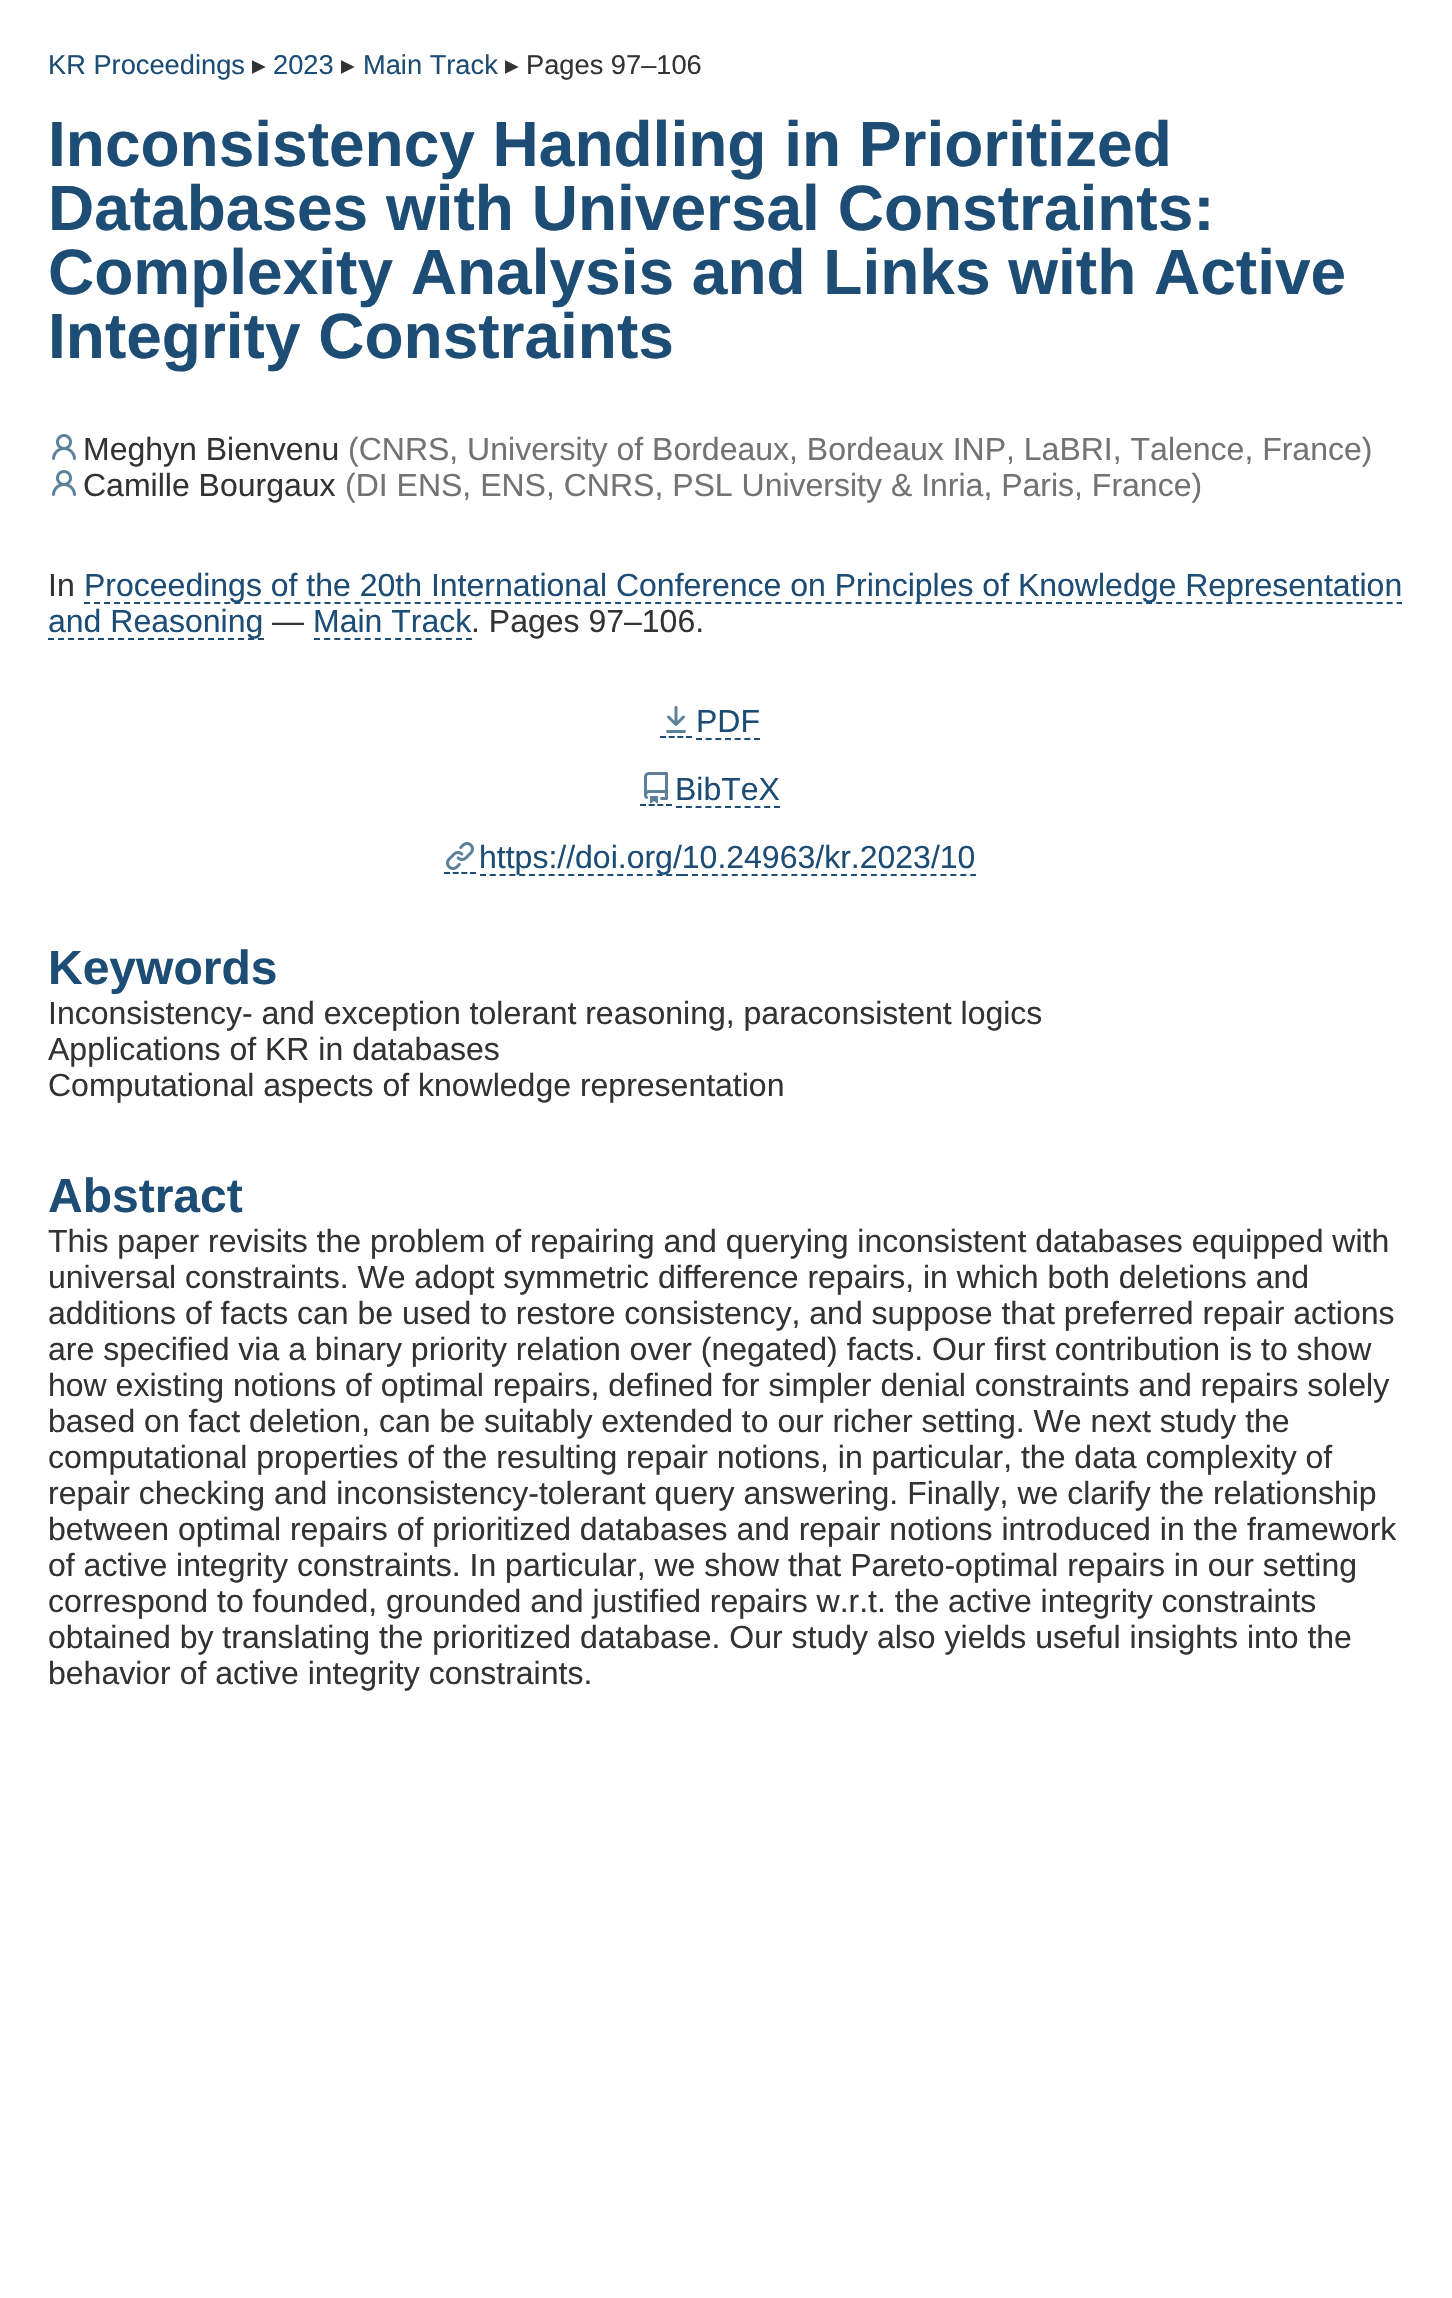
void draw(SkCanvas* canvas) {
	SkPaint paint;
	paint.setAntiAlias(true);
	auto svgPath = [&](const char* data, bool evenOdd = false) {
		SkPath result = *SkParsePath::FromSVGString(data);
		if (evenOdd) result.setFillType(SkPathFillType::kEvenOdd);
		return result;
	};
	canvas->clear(0xffffffff);
	SkFont f1(fontMgr->matchFamilyStyle("Liberation Sans", SkFontStyle::Normal()), 27.25);
	f1.setSubpixel(true);
	paint.setColor(0xff1d4c75);
	canvas->drawString("KR Proceedings", 48, 74, f1, paint);
	SkFont f2(fontMgr->matchFamilyStyle("DejaVu Sans", SkFontStyle::Normal()), 27.25);
	f2.setSubpixel(true);
	paint.setColor(0xff333333);
	canvas->drawString("▸", 252, 74, f2, paint);
	paint.setColor(0xff1d4c75);
	canvas->drawString("2023", 273, 74, f1, paint);
	paint.setColor(0xff333333);
	canvas->drawString("▸", 341, 74, f2, paint);
	paint.setColor(0xff1d4c75);
	canvas->drawString("Main Track", 363, 74, f1, paint);
	paint.setColor(0xff333333);
	canvas->drawString("▸", 505, 74, f2, paint);
	canvas->drawString("Pages 97–106", 526, 74, f1, paint);
	SkFont f3(fontMgr->matchFamilyStyle("Liberation Sans", SkFontStyle::Bold()), 64);
	f3.setSubpixel(true);
	paint.setColor(0xff1d4c75);
	canvas->drawString("Inconsistency Handling in Prioritized", 48, 166, f3, paint);
	canvas->drawString("Databases with Universal Constraints:", 48, 230, f3, paint);
	canvas->drawString("Complexity Analysis and Links with Active", 48, 294, f3, paint);
	canvas->drawString("Integrity Constraints", 48, 358, f3, paint);
	canvas->drawImageRect(SkImages::DeferredFromEncodedData(SkData::MakeFromFileName("img1.png")), SkRect::MakeXYWH(52, 434, 24, 26), SkSamplingOptions());
	SkFont f4(fontMgr->matchFamilyStyle("Liberation Sans", SkFontStyle::Normal()), 32);
	f4.setSubpixel(true);
	paint.setColor(0xff333333);
	canvas->drawString("Meghyn Bienvenu", 83, 460, f4, paint);
	paint.setColor(0xff737373);
	canvas->drawString("(CNRS, University of Bordeaux, Bordeaux INP, LaBRI, Talence, France)", 348, 460, f4, paint);
	canvas->drawImageRect(SkImages::DeferredFromEncodedData(SkData::MakeFromFileName("img1.png")), SkRect::MakeXYWH(52, 470, 24, 26), SkSamplingOptions());
	paint.setColor(0xff333333);
	canvas->drawString("Camille Bourgaux", 83, 496, f4, paint);
	paint.setColor(0xff737373);
	canvas->drawString("(DI ENS, ENS, CNRS, PSL University & Inria, Paris, France)", 345, 496, f4, paint);
	paint.setColor(0xff333333);
	canvas->drawString("In", 48, 596, f4, paint);
	paint.setStroke(true);
	paint.setStrokeWidth(2);
	paint.setColor(0xff1d4c75);
	paint.setPathEffect(SkDashPathEffect::Make({{6, 4.02f}}, 0));
	canvas->drawPath(svgPath("M84 603H1402"), paint);
	paint.setPathEffect(nullptr);
	paint.setStroke(false);
	canvas->drawString("Proceedings of the 20th International Conference on Principles of Knowledge Representation", 84, 596, f4, paint);
	paint.setStroke(true);
	paint.setPathEffect(SkDashPathEffect::Make({{6, 4}}, 0));
	canvas->drawPath(svgPath("M48 639H264"), paint);
	paint.setPathEffect(nullptr);
	paint.setStroke(false);
	canvas->drawString("and Reasoning", 48, 632, f4, paint);
	paint.setColor(0xff333333);
	canvas->drawString("—", 272, 632, f4, paint);
	paint.setColor(0xff1d4c75);
	canvas->drawString("Main Track", 313, 632, f4, paint);
	paint.setStroke(true);
	paint.setPathEffect(SkDashPathEffect::Make({{6, 4.14f}}, 0));
	canvas->drawPath(svgPath("M314 639H472"), paint);
	paint.setPathEffect(nullptr);
	paint.setStroke(false);
	paint.setColor(0xff333333);
	canvas->drawString(". Pages 97–106.", 471, 632, f4, paint);
	paint.setStroke(true);
	paint.setColor(0xff1d4c75);
	paint.setPathEffect(SkDashPathEffect::Make({{6, 2.66f}}, 0));
	canvas->drawPath(svgPath("M660 737H692"), paint);
	paint.setPathEffect(nullptr);
	paint.setPathEffect(SkDashPathEffect::Make({{6, 3.66f}}, 0));
	canvas->drawPath(svgPath("M696 739H760"), paint);
	paint.setPathEffect(nullptr);
	canvas->drawImageRect(SkImages::DeferredFromEncodedData(SkData::MakeFromFileName("img2.png")), SkRect::MakeXYWH(666, 706, 20, 27), SkSamplingOptions());
	paint.setStroke(false);
	canvas->drawString("PDF", 696, 732, f4, paint);
	paint.setStroke(true);
	paint.setPathEffect(SkDashPathEffect::Make({{6, 2.66f}}, 0));
	canvas->drawPath(svgPath("M640 805H672"), paint);
	paint.setPathEffect(nullptr);
	paint.setPathEffect(SkDashPathEffect::Make({{6, 3.8f}}, 0));
	canvas->drawPath(svgPath("M676 807H780"), paint);
	paint.setPathEffect(nullptr);
	canvas->drawImageRect(SkImages::DeferredFromEncodedData(SkData::MakeFromFileName("img3.png")), SkRect::MakeXYWH(644, 772, 24, 32), SkSamplingOptions());
	paint.setStroke(false);
	canvas->drawString("BibTeX", 675, 800, f4, paint);
	paint.setStroke(true);
	paint.setPathEffect(SkDashPathEffect::Make({{6, 2.66f}}, 0));
	canvas->drawPath(svgPath("M444 873H476"), paint);
	paint.setPathEffect(nullptr);
	paint.setPathEffect(SkDashPathEffect::Make({{6, 3.8f}}, 0));
	canvas->drawPath(svgPath("M480 875H682"), paint);
	paint.setPathEffect(nullptr);
	paint.setPathEffect(SkDashPathEffect::Make({{6, 3.94f}}, 0));
	canvas->drawPath(svgPath("M682 875H976"), paint);
	paint.setPathEffect(nullptr);
	canvas->drawImageRect(SkImages::DeferredFromEncodedData(SkData::MakeFromFileName("img4.png")), SkRect::MakeXYWH(446, 842, 28, 28), SkSamplingOptions());
	paint.setStroke(false);
	canvas->drawString("https://doi.org/10.24963/kr.2023/10", 479, 868, f4, paint);
	SkFont f5(fontMgr->matchFamilyStyle("Liberation Sans", SkFontStyle::Bold()), 48);
	f5.setSubpixel(true);
	canvas->drawString("Keywords", 48, 984, f5, paint);
	paint.setColor(0xff333333);
	canvas->drawString("Inconsistency- and exception tolerant reasoning, paraconsistent logics", 48, 1024, f4, paint);
	canvas->drawString("Applications of KR in databases", 48, 1060, f4, paint);
	canvas->drawString("Computational aspects of knowledge representation", 48, 1096, f4, paint);
	paint.setColor(0xff1d4c75);
	canvas->drawString("Abstract", 48, 1212, f5, paint);
	paint.setColor(0xff333333);
	canvas->drawString("This paper revisits the problem of repairing and querying inconsistent databases equipped with", 48, 1252, f4, paint);
	canvas->drawString("universal constraints. We adopt symmetric difference repairs, in which both deletions and", 48, 1288, f4, paint);
	canvas->drawString("additions of facts can be used to restore consistency, and suppose that preferred repair actions", 48, 1324, f4, paint);
	canvas->drawString("are specified via a binary priority relation over (negated) facts. Our first contribution is to show", 48, 1360, f4, paint);
	canvas->drawString("how existing notions of optimal repairs, defined for simpler denial constraints and repairs solely", 48, 1396, f4, paint);
	canvas->drawString("based on fact deletion, can be suitably extended to our richer setting. We next study the", 48, 1432, f4, paint);
	canvas->drawString("computational properties of the resulting repair notions, in particular, the data complexity of", 48, 1468, f4, paint);
	canvas->drawString("repair checking and inconsistency-tolerant query answering. Finally, we clarify the relationship", 48, 1504, f4, paint);
	canvas->drawString("between optimal repairs of prioritized databases and repair notions introduced in the framework", 48, 1540, f4, paint);
	canvas->drawString("of active integrity constraints. In particular, we show that Pareto-optimal repairs in our setting", 48, 1576, f4, paint);
	canvas->drawString("correspond to founded, grounded and justified repairs w.r.t. the active integrity constraints", 48, 1612, f4, paint);
	canvas->drawString("obtained by translating the prioritized database. Our study also yields useful insights into the", 48, 1648, f4, paint);
	canvas->drawString("behavior of active integrity constraints.", 48, 1684, f4, paint);
}
